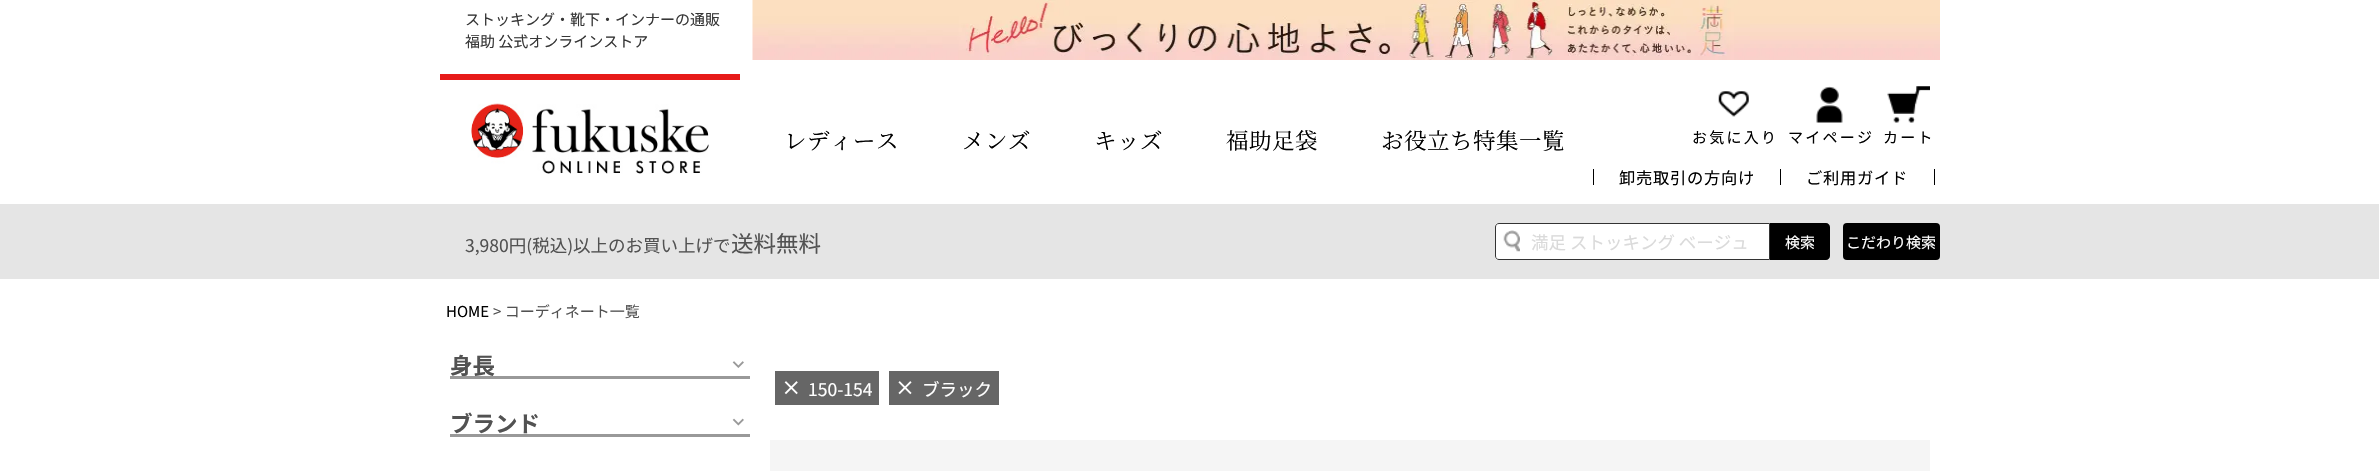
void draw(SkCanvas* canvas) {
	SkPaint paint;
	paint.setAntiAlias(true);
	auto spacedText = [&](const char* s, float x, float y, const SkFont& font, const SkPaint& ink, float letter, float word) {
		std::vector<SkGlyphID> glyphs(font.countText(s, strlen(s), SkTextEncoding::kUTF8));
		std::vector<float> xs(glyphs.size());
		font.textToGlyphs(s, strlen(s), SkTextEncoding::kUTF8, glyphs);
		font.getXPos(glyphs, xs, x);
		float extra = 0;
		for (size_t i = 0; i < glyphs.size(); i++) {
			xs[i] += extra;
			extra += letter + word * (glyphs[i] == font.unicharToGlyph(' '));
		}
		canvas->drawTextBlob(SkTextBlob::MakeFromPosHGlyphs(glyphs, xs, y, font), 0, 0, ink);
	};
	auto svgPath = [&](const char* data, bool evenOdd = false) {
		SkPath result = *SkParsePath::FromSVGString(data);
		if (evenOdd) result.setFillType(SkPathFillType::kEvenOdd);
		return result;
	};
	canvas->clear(0xffffffff);
	SkFont f1(fontMgr->matchFamilyStyle("Noto Sans JP", SkFontStyle::Normal()), 15);
	f1.setSubpixel(true);
	paint.setColor(0xff373737);
	canvas->drawString("ストッキング・靴下・インナーの通販", 465, 25, f1, paint);
	canvas->drawString("福助 公式オンラインストア", 465, 47, f1, paint);
	canvas->drawImageRect(SkImages::DeferredFromEncodedData(SkData::MakeFromFileName("img1.png")), SkRect::MakeXYWH(752, 0, 1188, 60), SkSamplingOptions());
	paint.setColor(0xffe71a19);
	canvas->drawRect(SkRect::MakeXYWH(440, 74, 300, 6), paint);
	canvas->drawImageRect(SkImages::DeferredFromEncodedData(SkData::MakeFromFileName("img2.png")), SkRect::MakeXYWH(471, 103, 238, 71), SkSamplingOptions());
	SkFont f2(fontMgr->matchFamilyStyle("Noto Serif JP", SkFontStyle::Normal()), 22.5);
	f2.setSubpixel(true);
	paint.setColor(0xff000000);
	spacedText("レディース", 784, 149, f2, paint, 0.5, 0);
	spacedText("メンズ", 962, 149, f2, paint, 0.5, 0);
	spacedText("キッズ", 1094, 149, f2, paint, 0.5, 0);
	spacedText("福助足袋", 1226, 149, f2, paint, 0.5, 0);
	spacedText("お役立ち特集一覧", 1381, 149, f2, paint, 0.5, 0);
	canvas->drawImageRect(SkImages::DeferredFromEncodedData(SkData::MakeFromFileName("img3.png")), SkRect::MakeXYWH(1718, 91, 31, 26), SkSamplingOptions());
	spacedText("お気に入り", 1692, 143, f1, paint, 2.25, 0);
	canvas->drawImageRect(SkImages::DeferredFromEncodedData(SkData::MakeFromFileName("img4.png")), SkRect::MakeXYWH(1816, 86, 27, 37), SkSamplingOptions());
	spacedText("マイページ", 1788, 143, f1, paint, 2.25, 0);
	canvas->drawImageRect(SkImages::DeferredFromEncodedData(SkData::MakeFromFileName("img5.png")), SkRect::MakeXYWH(1887, 86, 43, 37), SkSamplingOptions());
	spacedText("カート", 1883, 143, f1, paint, 2.25, 0);
	canvas->drawRect(SkRect::MakeXYWH(1780, 169, 1, 16), paint);
	canvas->drawRect(SkRect::MakeXYWH(1593, 169, 1, 16), paint);
	SkFont f3(fontMgr->matchFamilyStyle("Noto Sans JP", SkFontStyle::Normal()), 16.25);
	f3.setSubpixel(true);
	spacedText("卸売取引の方向け", 1619, 184, f3, paint, 0.75, 0);
	canvas->drawRect(SkRect::MakeXYWH(1934, 169, 1, 16), paint);
	spacedText("ご利用ガイド", 1806, 184, f3, paint, 0.75, 0);
	paint.setColor(0xffe5e5e5);
	canvas->drawRect(SkRect::MakeXYWH(0, 204, 2379, 75), paint);
	SkFont f4(fontMgr->matchFamilyStyle("Noto Sans JP", SkFontStyle::Normal()), 17.5);
	f4.setSubpixel(true);
	paint.setColor(0xff525252);
	canvas->drawString("3,980円(税込)以上のお買い上げで", 465, 252, f4, paint);
	SkFont f5(fontMgr->matchFamilyStyle("Noto Sans JP", SkFontStyle::Normal()), 22.5);
	f5.setSubpixel(true);
	canvas->drawString("送料無料", 731, 252, f5, paint);
	paint.setColor(0xffffffff);
	canvas->drawPath(svgPath("M1499 223H1770V260H1499C1497 260 1495 258 1495 256V227C1495 225 1497 223 1499 223Z"), paint);
	canvas->drawImageRect(SkImages::DeferredFromEncodedData(SkData::MakeFromFileName("img6.png")), SkRect::MakeXYWH(1503, 230, 17, 22), SkSamplingOptions());
	paint.setStroke(true);
	paint.setStrokeWidth(1);
	paint.setColor(0xff333333);
	canvas->drawPath(svgPath("M1499 223.5H1769.5V259.5H1499C1497 259.5 1495.5 258 1495.5 256V227C1495.5 225 1497 223.5 1499 223.5Z"), paint);
	paint.setStroke(false);
	paint.setColor(0xffdadada);
	canvas->drawString("満足 ストッキング ベージュ", 1531, 249, f4, paint);
	paint.setColor(0xff000000);
	canvas->drawPath(svgPath("M1770 223H1826C1828 223 1830 225 1830 227V256C1830 258 1828 260 1826 260H1770Z"), paint);
	paint.setColor(0xffffffff);
	canvas->drawString("検索", 1785, 248, f1, paint);
	paint.setColor(0xff000000);
	canvas->drawRoundRect(SkRect::MakeXYWH(1843, 223, 97, 37), 4, 4, paint);
	paint.setColor(0xffffffff);
	canvas->drawString("こだわり検索", 1846, 248, f1, paint);
	paint.setColor(0xff000000);
	canvas->drawString("HOME", 446, 317, f1, paint);
	paint.setColor(0xff525252);
	canvas->drawString("> コーディネート一覧", 493, 317, f1, paint);
	paint.setColor(0xff999999);
	canvas->drawRect(SkRect::MakeXYWH(450, 376, 300, 3), paint);
	SkFont f6(fontMgr->matchFamilyStyle("Noto Sans JP", SkFontStyle::Bold()), 22.5);
	f6.setSubpixel(true);
	paint.setColor(0xff525252);
	canvas->drawString("身長", 450, 374, f6, paint);
	canvas->drawImageRect(SkImages::DeferredFromEncodedData(SkData::MakeFromFileName("img7.png")), SkRect::MakeXYWH(732, 361, 12, 7), SkSamplingOptions());
	paint.setColor(0xff999999);
	canvas->drawRect(SkRect::MakeXYWH(450, 434, 300, 3), paint);
	paint.setColor(0xff525252);
	canvas->drawString("ブランド", 450, 432, f6, paint);
	canvas->drawImageRect(SkImages::DeferredFromEncodedData(SkData::MakeFromFileName("img8.png")), SkRect::MakeXYWH(732, 418, 12, 8), SkSamplingOptions());
	paint.setColor(0xff666666);
	canvas->drawRect(SkRect::MakeXYWH(775, 371, 104, 34), paint);
	canvas->drawImageRect(SkImages::DeferredFromEncodedData(SkData::MakeFromFileName("img9.png")), SkRect::MakeXYWH(784, 381, 14, 14), SkSamplingOptions());
	paint.setColor(0xffffffff);
	canvas->drawString("150-154", 808, 396, f4, paint);
	paint.setColor(0xff666666);
	canvas->drawRect(SkRect::MakeXYWH(889, 371, 110, 34), paint);
	canvas->drawImageRect(SkImages::DeferredFromEncodedData(SkData::MakeFromFileName("img10.png")), SkRect::MakeXYWH(898, 381, 14, 14), SkSamplingOptions());
	paint.setColor(0xffffffff);
	canvas->drawString("ブラック", 922, 396, f4, paint);
	paint.setColor(0xfff5f5f5);
	canvas->drawRect(SkRect::MakeXYWH(770, 440, 1160, 31), paint);
}
